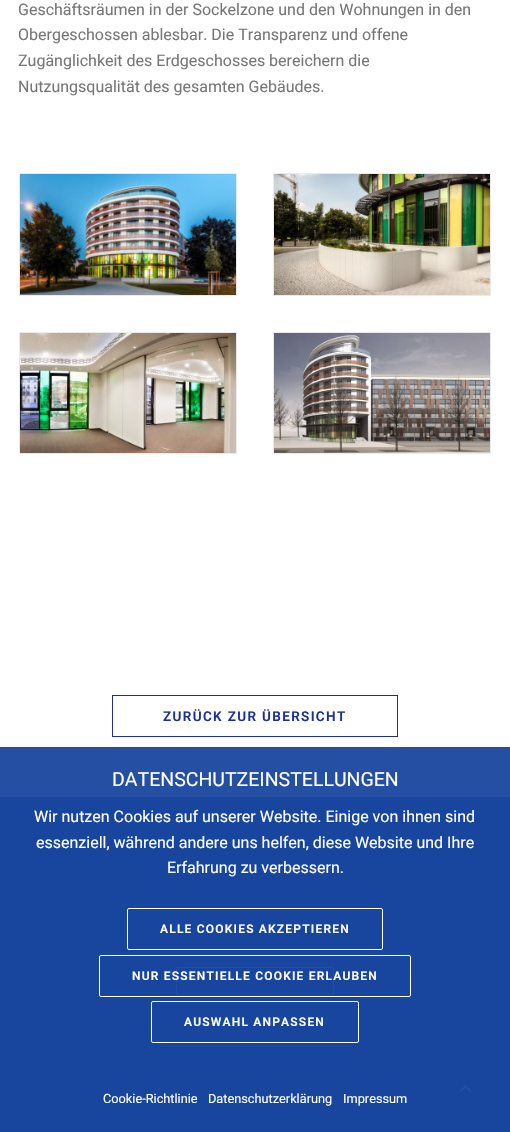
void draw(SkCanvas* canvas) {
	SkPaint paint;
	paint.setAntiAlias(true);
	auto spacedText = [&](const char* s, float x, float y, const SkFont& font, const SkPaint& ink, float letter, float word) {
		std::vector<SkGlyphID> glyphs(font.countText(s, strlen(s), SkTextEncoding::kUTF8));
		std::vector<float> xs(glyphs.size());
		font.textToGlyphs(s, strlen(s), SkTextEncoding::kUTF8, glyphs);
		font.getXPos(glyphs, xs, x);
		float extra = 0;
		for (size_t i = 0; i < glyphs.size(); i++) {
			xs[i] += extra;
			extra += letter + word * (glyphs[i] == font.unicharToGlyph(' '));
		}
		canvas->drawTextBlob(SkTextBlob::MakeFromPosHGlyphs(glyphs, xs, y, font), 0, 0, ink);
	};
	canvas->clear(0xffffffff);
	paint.setColor(0xff244fa3);
	canvas->drawRect(SkRect::MakeXYWH(0, 747, 510, 50), paint);
	SkFont f1(fontMgr->matchFamilyStyle("Roboto", SkFontStyle::Normal()), 16);
	f1.setSubpixel(true);
	paint.setColor(0xff777777);
	canvas->drawString("Geschäftsräumen in der Sockelzone und den Wohnungen in den", 18, 15, f1, paint);
	canvas->drawString("Obergeschossen ablesbar. Die Transparenz und offene", 18, 40, f1, paint);
	canvas->drawString("Zugänglichkeit des Erdgeschosses bereichern die", 18, 66, f1, paint);
	canvas->drawString("Nutzungsqualität des gesamten Gebäudes.", 18, 92, f1, paint);
	paint.setStroke(true);
	paint.setStrokeWidth(1);
	paint.setColor(0xffeaeaea);
	canvas->drawRect(SkRect::MakeXYWH(19.5, 173.5, 217, 122), paint);
	canvas->drawImageRect(SkImages::DeferredFromEncodedData(SkData::MakeFromFileName("img1.png")), SkRect::MakeXYWH(20, 174, 216, 121), SkSamplingOptions());
	canvas->drawRect(SkRect::MakeXYWH(273.5, 173.5, 217, 122), paint);
	canvas->drawImageRect(SkImages::DeferredFromEncodedData(SkData::MakeFromFileName("img2.png")), SkRect::MakeXYWH(274, 174, 216, 121), SkSamplingOptions());
	canvas->drawRect(SkRect::MakeXYWH(19.5, 332.5, 217, 121), paint);
	canvas->drawImageRect(SkImages::DeferredFromEncodedData(SkData::MakeFromFileName("img3.png")), SkRect::MakeXYWH(20, 333, 216, 120), SkSamplingOptions());
	canvas->drawRect(SkRect::MakeXYWH(273.5, 332.5, 217, 121), paint);
	canvas->drawImageRect(SkImages::DeferredFromEncodedData(SkData::MakeFromFileName("img4.png")), SkRect::MakeXYWH(274, 333, 216, 120), SkSamplingOptions());
	paint.setColor(0xff1b2f97);
	canvas->drawRect(SkRect::MakeXYWH(112.5, 695.5, 285, 41), paint);
	SkFont f2(fontMgr->matchFamilyStyle("Roboto", SkFontStyle(600, SkFontStyle::kNormal_Width, SkFontStyle::kUpright_Slant)), 13.5);
	f2.setSubpixel(true);
	paint.setStroke(false);
	spacedText("ZURÜCK ZUR ÜBERSICHT", 163, 721, f2, paint, 1.35, 0);
	paint.setColor(0xff18459e);
	canvas->drawRect(SkRect::MakeXYWH(0, 797, 510, 335), paint);
	paint.setStroke(true);
	paint.setStrokeWidth(0.8);
	paint.setColor(0xff244fa3);
	canvas->drawRoundRect(SkRect::MakeXYWH(176.4, 967.4, 157.2, 27.2), 1.1, 1.1, paint);
	SkFont f3(fontMgr->matchFamilyStyle("Roboto", SkFontStyle::Normal()), 19.5);
	f3.setSubpixel(true);
	paint.setStroke(false);
	paint.setColor(0xffffffff);
	canvas->drawString("DATENSCHUTZEINSTELLUNGEN", 112, 786, f3, paint);
	canvas->drawString("Wir nutzen Cookies auf unserer Website. Einige von ihnen sind", 34, 822, f1, paint);
	canvas->drawString("essenziell, während andere uns helfen, diese Website und Ihre", 36, 848, f1, paint);
	canvas->drawString("Erfahrung zu verbessern.", 167, 873, f1, paint);
	paint.setStroke(true);
	paint.setStrokeWidth(1);
	canvas->drawRoundRect(SkRect::MakeXYWH(127.5, 908.5, 255, 41), 1.5, 1.5, paint);
	SkFont f4(fontMgr->matchFamilyStyle("Roboto", SkFontStyle(600, SkFontStyle::kNormal_Width, SkFontStyle::kUpright_Slant)), 12);
	f4.setSubpixel(true);
	paint.setStroke(false);
	spacedText("ALLE COOKIES AKZEPTIEREN", 160, 933, f4, paint, 1.2, 0);
	paint.setStroke(true);
	canvas->drawRoundRect(SkRect::MakeXYWH(99.5, 955.5, 311, 41), 1.5, 1.5, paint);
	paint.setStroke(false);
	spacedText("NUR ESSENTIELLE COOKIE ERLAUBEN", 132, 980, f4, paint, 1.2, 0);
	paint.setStroke(true);
	canvas->drawRoundRect(SkRect::MakeXYWH(151.5, 1001.5, 207, 41), 1.5, 1.5, paint);
	paint.setStroke(false);
	spacedText("AUSWAHL ANPASSEN", 184, 1026, f4, paint, 1.2, 0);
	SkFont f5(fontMgr->matchFamilyStyle("Roboto", SkFontStyle::Normal()), 12.75);
	f5.setSubpixel(true);
	canvas->drawString("Cookie-Richtlinie", 103, 1103, f5, paint);
	canvas->drawString("Datenschutzerklärung", 208, 1103, f5, paint);
	canvas->drawString("Impressum", 343, 1103, f5, paint);
	canvas->drawImageRect(SkImages::DeferredFromEncodedData(SkData::MakeFromFileName("img5.png")), SkRect::MakeXYWH(459, 1085, 12, 7), SkSamplingOptions());
}
